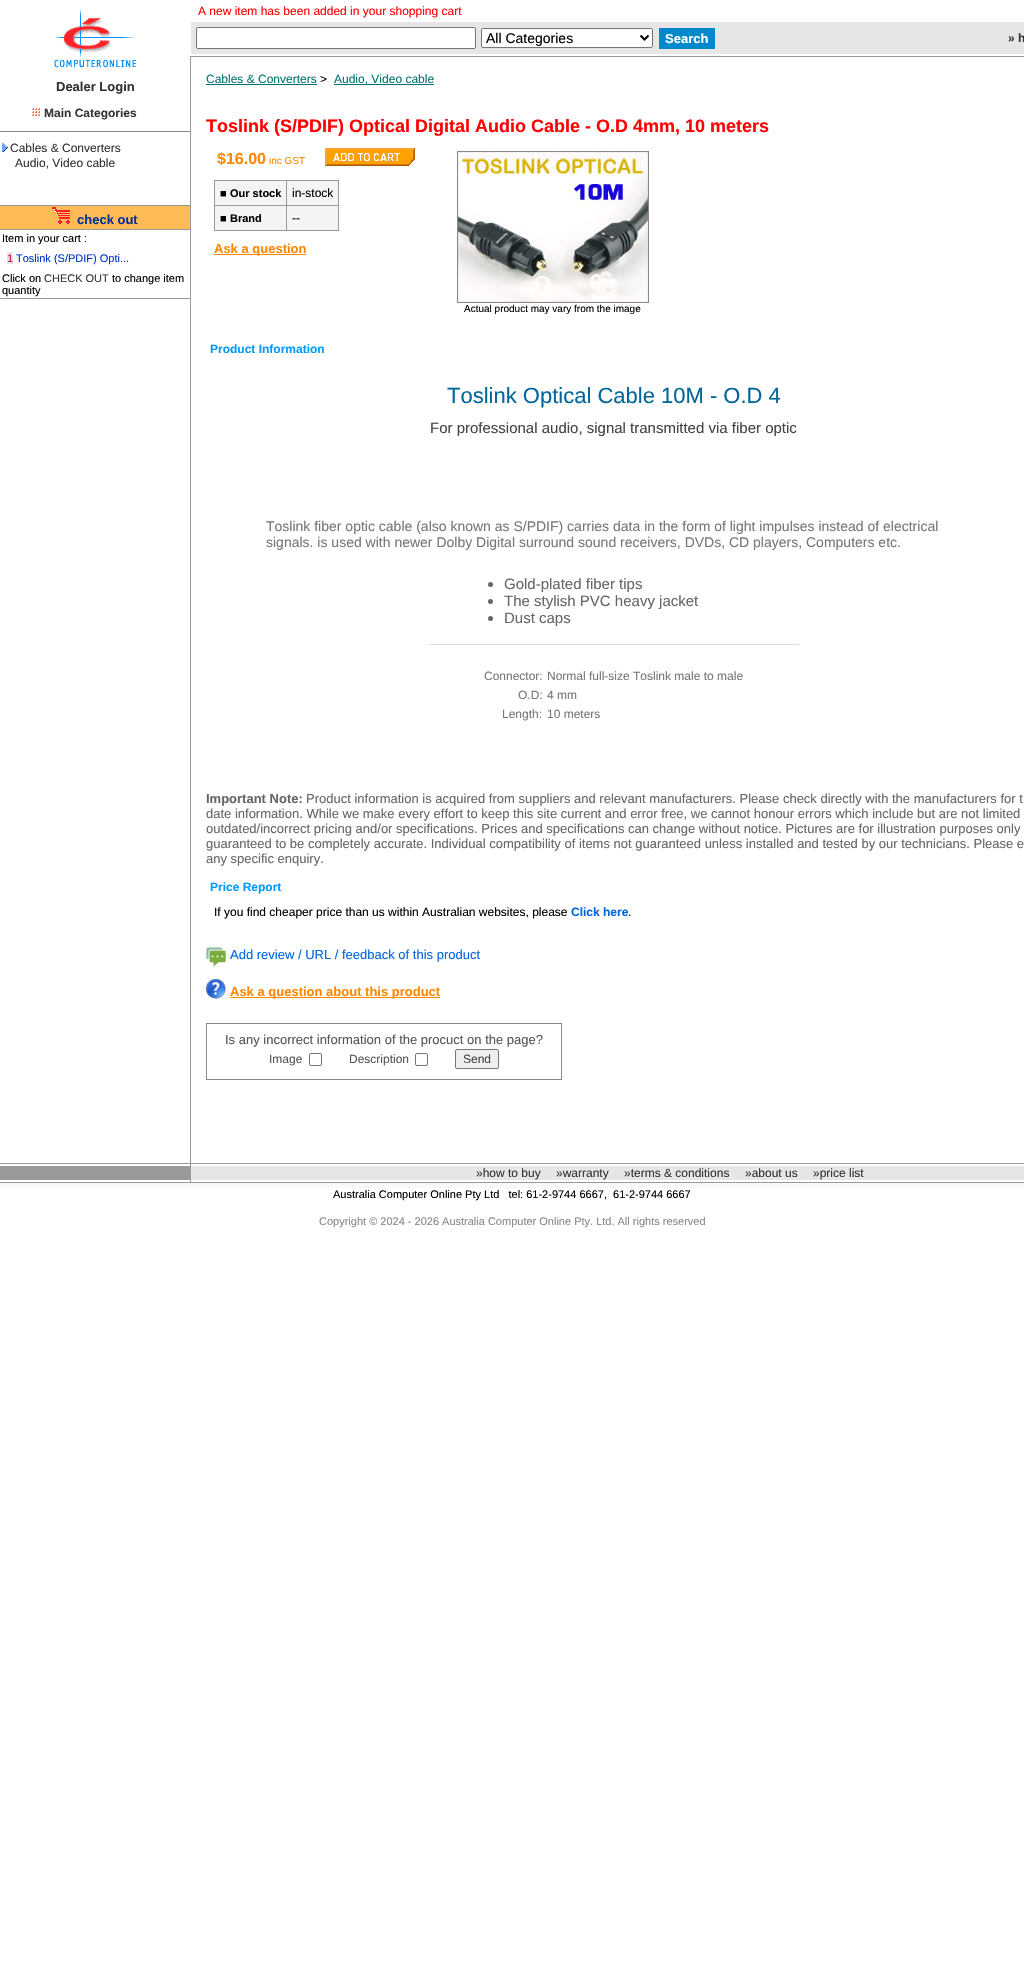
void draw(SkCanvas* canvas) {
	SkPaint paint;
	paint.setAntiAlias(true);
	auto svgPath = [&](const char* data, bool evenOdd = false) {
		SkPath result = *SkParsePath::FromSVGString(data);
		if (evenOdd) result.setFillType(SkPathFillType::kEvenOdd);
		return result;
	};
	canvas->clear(0xffffffff);
	paint.setColor(0xfff9f9f9);
	canvas->drawRect(SkRect::MakeXYWH(0, 1183, 1024, 5), paint);
	canvas->drawImageRect(SkImages::DeferredFromEncodedData(SkData::MakeFromFileName("img1.png")), SkRect::MakeXYWH(53, 8, 83, 60), SkSamplingOptions());
	SkFont f1(fontMgr->matchFamilyStyle("Liberation Sans", SkFontStyle::Bold()), 13);
	f1.setSubpixel(true);
	paint.setColor(0xff333333);
	canvas->drawString("Dealer Login", 56, 91, f1, paint);
	canvas->drawImageRect(SkImages::DeferredFromEncodedData(SkData::MakeFromFileName("img2.png")), SkRect::MakeXYWH(32, 108, 8, 8), SkSamplingOptions());
	SkFont f2(fontMgr->matchFamilyStyle("Liberation Sans", SkFontStyle::Bold()), 12);
	f2.setSubpixel(true);
	canvas->drawString("Main Categories", 44, 117, f2, paint);
	paint.setColor(0xff888888);
	canvas->drawRect(SkRect::MakeXYWH(0, 131, 190, 1), paint);
	canvas->drawImageRect(SkImages::DeferredFromEncodedData(SkData::MakeFromFileName("img3.png")), SkRect::MakeXYWH(2, 143, 6, 9), SkSamplingOptions());
	SkFont f3(fontMgr->matchFamilyStyle("Liberation Sans", SkFontStyle::Normal()), 12);
	f3.setSubpixel(true);
	paint.setColor(0xff333333);
	canvas->drawString("Cables & Converters", 10, 152, f3, paint);
	canvas->drawString("Audio, Video cable", 15, 167, f3, paint);
	paint.setColor(0xffffbb55);
	canvas->drawRect(SkRect::MakeXYWH(0, 206, 190, 23), paint);
	paint.setColor(0xff999999);
	canvas->drawRect(SkRect::MakeXYWH(0, 205, 190, 1), paint);
	canvas->drawRect(SkRect::MakeXYWH(0, 229, 190, 1), paint);
	canvas->drawImageRect(SkImages::DeferredFromEncodedData(SkData::MakeFromFileName("img4.png")), SkRect::MakeXYWH(52, 207, 18, 17), SkSamplingOptions());
	paint.setColor(0xff003399);
	canvas->drawString("check out", 77, 224, f1, paint);
	paint.setColor(0xff999999);
	canvas->drawRect(SkRect::MakeXYWH(0, 298, 190, 1), paint);
	SkFont f4(fontMgr->matchFamilyStyle("Liberation Sans", SkFontStyle::Normal()), 11);
	f4.setSubpixel(true);
	paint.setColor(0xff000000);
	canvas->drawString("Item in your cart :", 2, 242, f4, paint);
	paint.setColor(0xffe6e6e6);
	canvas->drawRect(SkRect::MakeXYWH(7, 252, 6, 12), paint);
	paint.setColor(0xffcc0033);
	canvas->drawString("1", 7, 262, f4, paint);
	paint.setColor(0xff0033cc);
	canvas->drawString("Toslink (S/PDIF) Opti...", 16, 262, f4, paint);
	paint.setColor(0xff000000);
	canvas->drawString("Click on", 2, 282, f4, paint);
	paint.setColor(0xff333333);
	canvas->drawString("CHECK OUT", 44, 282, f4, paint);
	paint.setColor(0xff000000);
	canvas->drawString("to change item", 112, 282, f4, paint);
	canvas->drawString("quantity", 2, 294, f4, paint);
	paint.setColor(0xff999999);
	canvas->drawRect(SkRect::MakeXYWH(190, 56, 1, 1107), paint);
	paint.setColor(0xffff0000);
	canvas->drawString("A new item has been added in your shopping cart", 198, 15, f3, paint);
	paint.setColor(0xffe6e6e6);
	canvas->drawRect(SkRect::MakeXYWH(191, 22, 833, 32), paint);
	paint.setColor(0xffffffff);
	canvas->drawRoundRect(SkRect::MakeXYWH(196.5, 27.5, 279, 21), 1.5, 1.5, paint);
	paint.setStroke(true);
	paint.setStrokeWidth(1);
	paint.setColor(0xff767676);
	canvas->drawRoundRect(SkRect::MakeXYWH(196.5, 27.5, 279, 21), 1.5, 1.5, paint);
	paint.setStroke(false);
	paint.setColor(0xffffffff);
	canvas->drawRoundRect(SkRect::MakeXYWH(481.5, 28.5, 171, 19), 1.5, 1.5, paint);
	paint.setStroke(true);
	paint.setColor(0xff767676);
	canvas->drawRoundRect(SkRect::MakeXYWH(481.5, 28.5, 171, 19), 1.5, 1.5, paint);
	paint.setStrokeWidth(2);
	paint.setColor(0xff000000);
	canvas->drawPath(svgPath("M640.5 35.5L644.5 39.5L648.5 35.5"), paint);
	SkFont f5(fontMgr->matchFamilyStyle("Liberation Sans", SkFontStyle::Normal()), 14);
	f5.setSubpixel(true);
	paint.setStroke(false);
	canvas->drawString("All Categories", 486, 43, f5, paint);
	paint.setColor(0xff0088cc);
	canvas->drawRect(SkRect::MakeXYWH(659, 28, 56, 21), paint);
	paint.setColor(0xffffffff);
	canvas->drawString("Search", 665, 43, f1, paint);
	paint.setColor(0xff333333);
	canvas->drawString("» h", 1008, 42, f2, paint);
	paint.setColor(0xff999999);
	canvas->drawRect(SkRect::MakeXYWH(191, 56, 833, 1), paint);
	paint.setColor(0xff047373);
	canvas->drawString("Cables & Converters", 206, 83, f3, paint);
	canvas->drawRect(SkRect::MakeXYWH(206, 84, 111, 1), paint);
	paint.setColor(0xff000000);
	canvas->drawString(">", 320, 83, f3, paint);
	paint.setColor(0xff047373);
	canvas->drawRect(SkRect::MakeXYWH(334, 84, 100, 1), paint);
	canvas->drawString("Audio, Video cable", 334, 83, f3, paint);
	SkFont f6(fontMgr->matchFamilyStyle("Liberation Sans", SkFontStyle::Bold()), 18);
	f6.setSubpixel(true);
	paint.setColor(0xffff0000);
	canvas->drawString("Toslink (S/PDIF) Optical Digital Audio Cable - O.D 4mm, 10 meters", 206, 132, f6, paint);
	SkFont f7(fontMgr->matchFamilyStyle("Liberation Sans", SkFontStyle::Bold()), 16);
	f7.setSubpixel(true);
	paint.setColor(0xffff8800);
	canvas->drawString("$16.00", 217, 164, f7, paint);
	SkFont f8(fontMgr->matchFamilyStyle("Liberation Sans", SkFontStyle::Normal()), 10);
	f8.setSubpixel(true);
	canvas->drawString("inc GST", 269, 164, f8, paint);
	canvas->drawImageRect(SkImages::DeferredFromEncodedData(SkData::MakeFromFileName("img5.png")), SkRect::MakeXYWH(325, 148, 90, 18), SkSamplingOptions());
	paint.setColor(0xfff4f4f4);
	canvas->drawRect(SkRect::MakeXYWH(215, 181, 123, 49), paint);
	paint.setColor(0xff999999);
	canvas->drawRect(SkRect::MakeXYWH(214, 180, 125, 1), paint);
	canvas->drawRect(SkRect::MakeXYWH(338, 180, 1, 51), paint);
	canvas->drawRect(SkRect::MakeXYWH(214, 230, 125, 1), paint);
	canvas->drawRect(SkRect::MakeXYWH(214, 180, 1, 51), paint);
	paint.setColor(0xff000000);
	canvas->drawString("■", 220, 197, f4, paint);
	SkFont f9(fontMgr->matchFamilyStyle("Liberation Sans", SkFontStyle::Bold()), 11);
	f9.setSubpixel(true);
	canvas->drawString("Our stock", 230, 197, f9, paint);
	paint.setColor(0xff999999);
	canvas->drawRect(SkRect::MakeXYWH(286, 205, 53, 1), paint);
	canvas->drawRect(SkRect::MakeXYWH(286, 205, 1, 26), paint);
	canvas->drawRect(SkRect::MakeXYWH(214, 205, 73, 1), paint);
	canvas->drawRect(SkRect::MakeXYWH(286, 180, 1, 26), paint);
	paint.setColor(0xff000000);
	canvas->drawString("in-stock", 292, 197, f3, paint);
	canvas->drawString("■", 220, 222, f4, paint);
	canvas->drawString("Brand", 230, 222, f9, paint);
	canvas->drawString("--", 292, 222, f3, paint);
	paint.setColor(0xffff8800);
	canvas->drawRect(SkRect::MakeXYWH(214, 254, 92, 1), paint);
	canvas->drawString("Ask a question", 214, 253, f1, paint);
	canvas->drawImageRect(SkImages::DeferredFromEncodedData(SkData::MakeFromFileName("img6.png")), SkRect::MakeXYWH(457, 151, 192, 152), SkSamplingOptions());
	paint.setColor(0xff000000);
	canvas->drawString("Actual product may vary from the image", 464, 312, f8, paint);
	paint.setColor(0xff0099ff);
	canvas->drawString("Product Information", 210, 353, f2, paint);
	SkFont f10(fontMgr->matchFamilyStyle("Liberation Sans", SkFontStyle::Normal()), 22);
	f10.setSubpixel(true);
	paint.setColor(0xff006699);
	canvas->drawString("Toslink Optical Cable 10M - O.D 4", 447, 403, f10, paint);
	SkFont f11(fontMgr->matchFamilyStyle("Liberation Sans", SkFontStyle::Normal()), 15);
	f11.setSubpixel(true);
	paint.setColor(0xff444444);
	canvas->drawString("For professional audio, signal transmitted via fiber optic", 430, 433, f11, paint);
	paint.setColor(0xff777777);
	canvas->drawString("Toslink fiber optic cable (also known as S/PDIF) carries data in the form of light impulses instead of electrical", 266, 531, f5, paint);
	canvas->drawString("signals. is used with newer Dolby Digital surround sound receivers, DVDs, CD players, Computers etc.", 266, 547, f5, paint);
	paint.setColor(0xff666666);
	canvas->drawCircle(490.5, 584.5, 2.5, paint);
	canvas->drawString("Gold-plated fiber tips", 504, 589, f11, paint);
	canvas->drawCircle(490.5, 601.5, 2.5, paint);
	canvas->drawString("The stylish PVC heavy jacket", 504, 606, f11, paint);
	canvas->drawCircle(490.5, 618.5, 2.5, paint);
	canvas->drawString("Dust caps", 504, 623, f11, paint);
	paint.setColor(0xffdddddd);
	canvas->drawRect(SkRect::MakeXYWH(429, 644, 370, 1), paint);
	paint.setColor(0xff777777);
	canvas->drawString("Connector:", 484, 680, f3, paint);
	canvas->drawString("Normal full-size Toslink male to male", 547, 680, f3, paint);
	canvas->drawString("O.D:", 518, 699, f3, paint);
	canvas->drawString("4 mm", 547, 699, f3, paint);
	canvas->drawString("Length:", 502, 718, f3, paint);
	canvas->drawString("10 meters", 547, 718, f3, paint);
	paint.setColor(0xff666666);
	canvas->drawString("Important Note:", 206, 803, f1, paint);
	SkFont f12(fontMgr->matchFamilyStyle("Liberation Sans", SkFontStyle::Normal()), 13);
	f12.setSubpixel(true);
	canvas->drawString("Product information is acquired from suppliers and relevant manufacturers. Please check directly with the manufacturers for t", 306, 803, f12, paint);
	canvas->drawString("date information. While we make every effort to keep this site current and error free, we cannot honour errors which include but are not limited", 206, 818, f12, paint);
	canvas->drawString("outdated/incorrect pricing and/or specifications. Prices and specifications can change without notice. Pictures are for illustration purposes only", 206, 833, f12, paint);
	canvas->drawString("guaranteed to be completely accurate. Individual compatibility of items not guaranteed unless installed and tested by our technicians. Please e", 206, 848, f12, paint);
	canvas->drawString("any specific enquiry.", 206, 863, f12, paint);
	paint.setColor(0xff0099ff);
	canvas->drawString("Price Report", 210, 891, f2, paint);
	paint.setColor(0xff000000);
	canvas->drawString("If you find cheaper price than us within Australian websites, please", 214, 916, f3, paint);
	paint.setColor(0xff0066dd);
	canvas->drawString("Click here", 571, 916, f2, paint);
	paint.setColor(0xff000000);
	canvas->drawString(".", 628, 916, f3, paint);
	canvas->drawImageRect(SkImages::DeferredFromEncodedData(SkData::MakeFromFileName("img7.png")), SkRect::MakeXYWH(206, 947, 20, 20), SkSamplingOptions());
	paint.setColor(0xff0066dd);
	canvas->drawString("Add review / URL / feedback of this product", 230, 959, f12, paint);
	canvas->drawImageRect(SkImages::DeferredFromEncodedData(SkData::MakeFromFileName("img8.png")), SkRect::MakeXYWH(206, 979, 20, 20), SkSamplingOptions());
	paint.setColor(0xffff8800);
	canvas->drawRect(SkRect::MakeXYWH(230, 997, 210, 1), paint);
	canvas->drawString("Ask a question about this product", 230, 996, f1, paint);
	paint.setStroke(true);
	paint.setStrokeWidth(1);
	paint.setColor(0xff888888);
	canvas->drawRect(SkRect::MakeXYWH(206.5, 1023.5, 355, 56), paint);
	paint.setStroke(false);
	paint.setColor(0xff555555);
	canvas->drawString("Is any incorrect information of the procuct on the page?", 225, 1044, f12, paint);
	canvas->drawString("Image", 269, 1063, f3, paint);
	paint.setStroke(true);
	paint.setColor(0xff767676);
	canvas->drawRoundRect(SkRect::MakeXYWH(309.5, 1053.5, 12, 12), 1.5, 1.5, paint);
	paint.setStroke(false);
	paint.setColor(0xff555555);
	canvas->drawString("Description", 349, 1063, f3, paint);
	paint.setStroke(true);
	paint.setColor(0xff767676);
	canvas->drawRoundRect(SkRect::MakeXYWH(415.5, 1053.5, 12, 12), 1.5, 1.5, paint);
	paint.setStroke(false);
	paint.setColor(0xffefefef);
	canvas->drawRoundRect(SkRect::MakeXYWH(455.5, 1049.5, 43, 19), 1.5, 1.5, paint);
	paint.setStroke(true);
	paint.setColor(0xff767676);
	canvas->drawRoundRect(SkRect::MakeXYWH(455.5, 1049.5, 43, 19), 1.5, 1.5, paint);
	paint.setStroke(false);
	paint.setColor(0xff444444);
	canvas->drawString("Send", 463, 1063, f3, paint);
	paint.setColor(0xff999999);
	canvas->drawRect(SkRect::MakeXYWH(0, 1163, 1024, 1), paint);
	canvas->drawRect(SkRect::MakeXYWH(190, 1164, 1, 2), paint);
	canvas->drawRect(SkRect::MakeXYWH(0, 1166, 191, 14), paint);
	paint.setColor(0xffe6e6e6);
	canvas->drawRect(SkRect::MakeXYWH(191, 1166, 833, 14), paint);
	paint.setColor(0xff333333);
	canvas->drawString("»how to buy", 476, 1177, f3, paint);
	canvas->drawString("»warranty", 556, 1177, f3, paint);
	canvas->drawString("»terms & conditions", 624, 1177, f3, paint);
	canvas->drawString("»about us", 745, 1177, f3, paint);
	canvas->drawString("»price list", 813, 1177, f3, paint);
	paint.setColor(0xff999999);
	canvas->drawRect(SkRect::MakeXYWH(190, 1180, 1, 2), paint);
	canvas->drawRect(SkRect::MakeXYWH(0, 1182, 1024, 1), paint);
	paint.setColor(0xff000000);
	canvas->drawString("Australia Computer Online Pty Ltd   tel: 61-2-9744 6667,  61-2-9744 6667", 333, 1198, f4, paint);
	paint.setColor(0xff888888);
	canvas->drawString("Copyright © 2024 - 2026 Australia Computer Online Pty. Ltd. All rights reserved", 319, 1225, f4, paint);
}
